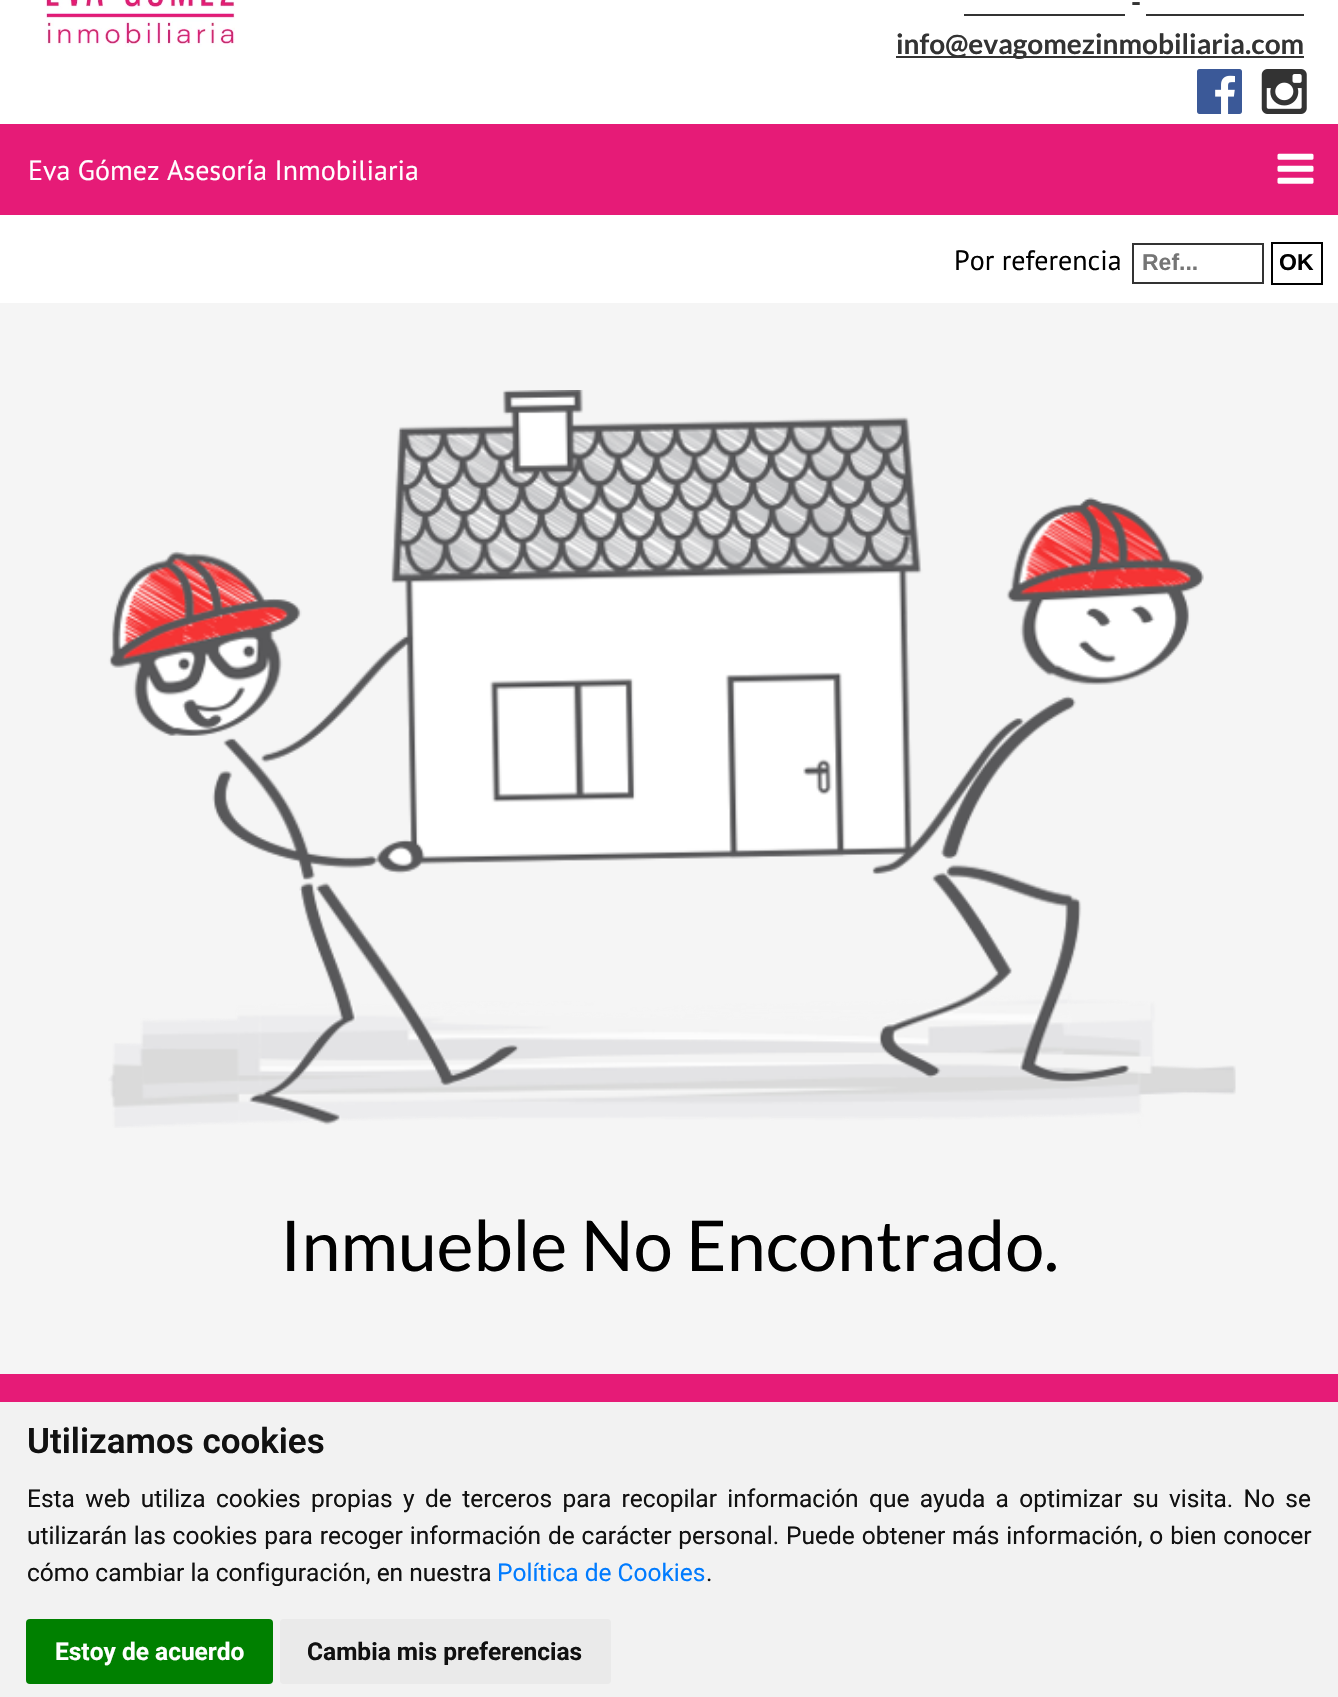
void draw(SkCanvas* canvas) {
	SkPaint paint;
	paint.setAntiAlias(true);
	auto spacedText = [&](const char* s, float x, float y, const SkFont& font, const SkPaint& ink, float letter, float word) {
		std::vector<SkGlyphID> glyphs(font.countText(s, strlen(s), SkTextEncoding::kUTF8));
		std::vector<float> xs(glyphs.size());
		font.textToGlyphs(s, strlen(s), SkTextEncoding::kUTF8, glyphs);
		font.getXPos(glyphs, xs, x);
		float extra = 0;
		for (size_t i = 0; i < glyphs.size(); i++) {
			xs[i] += extra;
			extra += letter + word * (glyphs[i] == font.unicharToGlyph(' '));
		}
		canvas->drawTextBlob(SkTextBlob::MakeFromPosHGlyphs(glyphs, xs, y, font), 0, 0, ink);
	};
	canvas->clear(0xffffffff);
	canvas->drawImageRect(SkImages::DeferredFromEncodedData(SkData::MakeFromFileName("img1.png")), SkRect::MakeXYWH(44, 0, 191, 47), SkSamplingOptions());
	SkFont f1(fontMgr->matchFamilyStyle("Lato", SkFontStyle::Bold()), 28);
	f1.setSubpixel(true);
	paint.setColor(0xff333333);
	canvas->drawString("-", 1131, 12, f1, paint);
	canvas->drawRect(SkRect::MakeXYWH(964, 14, 161, 2), paint);
	canvas->drawRect(SkRect::MakeXYWH(1146, 14, 158, 2), paint);
	canvas->drawRect(SkRect::MakeXYWH(896, 56, 408, 2), paint);
	canvas->drawString("info@evagomezinmobiliaria.com", 896, 54, f1, paint);
	canvas->drawImageRect(SkImages::DeferredFromEncodedData(SkData::MakeFromFileName("img2.png")), SkRect::MakeXYWH(1197, 69, 45, 45), SkSamplingOptions());
	canvas->drawImageRect(SkImages::DeferredFromEncodedData(SkData::MakeFromFileName("img3.png")), SkRect::MakeXYWH(1261, 69, 46, 45), SkSamplingOptions());
	paint.setColor(0xffe61b77);
	canvas->drawRect(SkRect::MakeXYWH(0, 124, 1338, 91), paint);
	SkFont f2(fontMgr->matchFamilyStyle("PT Sans", SkFontStyle::Normal()), 28);
	f2.setSubpixel(true);
	paint.setColor(0xffffffff);
	canvas->drawString("Eva Gómez Asesoría Inmobiliaria", 28, 180, f2, paint);
	canvas->drawImageRect(SkImages::DeferredFromEncodedData(SkData::MakeFromFileName("img4.png")), SkRect::MakeXYWH(1277, 153, 37, 31), SkSamplingOptions());
	paint.setColor(0xff000000);
	canvas->drawString("Por referencia", 954, 270, f2, paint);
	paint.setStroke(true);
	paint.setStrokeWidth(2);
	paint.setColor(0xff333333);
	canvas->drawRect(SkRect::MakeXYWH(1133, 244, 130, 39), paint);
	SkFont f3(fontMgr->matchFamilyStyle("Liberation Sans", SkFontStyle::Bold()), 23);
	f3.setSubpixel(true);
	paint.setStroke(false);
	paint.setColor(0xff757575);
	canvas->drawString("Ref...", 1142, 270, f3, paint);
	paint.setStroke(true);
	paint.setColor(0xff000000);
	canvas->drawRect(SkRect::MakeXYWH(1272, 243, 50, 41), paint);
	paint.setStroke(false);
	canvas->drawString("OK", 1279, 270, f3, paint);
	paint.setColor(0xfff5f5f5);
	canvas->drawRect(SkRect::MakeXYWH(0, 303, 1338, 1071), paint);
	canvas->drawImageRect(SkImages::DeferredFromEncodedData(SkData::MakeFromFileName("img5.png")), SkRect::MakeXYWH(108, 390, 1128, 738), SkSamplingOptions());
	SkFont f4(fontMgr->matchFamilyStyle("Lato", SkFontStyle::Normal()), 70);
	f4.setSubpixel(true);
	paint.setColor(0xff000000);
	canvas->drawString("Inmueble No Encontrado.", 280, 1271, f4, paint);
	paint.setColor(0xffe61b77);
	canvas->drawRect(SkRect::MakeXYWH(0, 1374, 1338, 28), paint);
	paint.setColor(0xfff2f2f2);
	canvas->drawRect(SkRect::MakeXYWH(0, 1402, 1338, 295), paint);
	SkFont f5(fontMgr->matchFamilyStyle("Roboto", SkFontStyle(600, SkFontStyle::kNormal_Width, SkFontStyle::kUpright_Slant)), 35);
	f5.setSubpixel(true);
	paint.setColor(0xff111111);
	canvas->drawString("Utilizamos cookies", 27, 1453, f5, paint);
	SkFont f6(fontMgr->matchFamilyStyle("Roboto", SkFontStyle::Normal()), 24.5);
	f6.setSubpixel(true);
	spacedText("Esta web utiliza cookies propias y de terceros para recopilar información que ayuda a optimizar su visita. No se", 27, 1507, f6, paint, 0, 4.25);
	spacedText("utilizarán las cookies para recoger información de carácter personal. Puede obtener más información, o bien conocer", 27, 1544, f6, paint, 0, 0.75);
	canvas->drawString("cómo cambiar la configuración, en nuestra", 27, 1581, f6, paint);
	paint.setColor(0xff007bff);
	canvas->drawString("Política de Cookies", 497, 1581, f6, paint);
	paint.setColor(0xff111111);
	canvas->drawString(".", 706, 1581, f6, paint);
	paint.setColor(0xff008000);
	canvas->drawRoundRect(SkRect::MakeXYWH(26, 1619, 247, 65), 4, 4, paint);
	SkFont f7(fontMgr->matchFamilyStyle("Roboto", SkFontStyle::Bold()), 24.5);
	f7.setSubpixel(true);
	paint.setColor(0xffffffff);
	canvas->drawString("Estoy de acuerdo", 55, 1660, f7, paint);
	paint.setColor(0xffeaeaea);
	canvas->drawRoundRect(SkRect::MakeXYWH(280, 1619, 331, 65), 4, 4, paint);
	paint.setColor(0xff111111);
	canvas->drawString("Cambia mis preferencias", 307, 1660, f7, paint);
}
